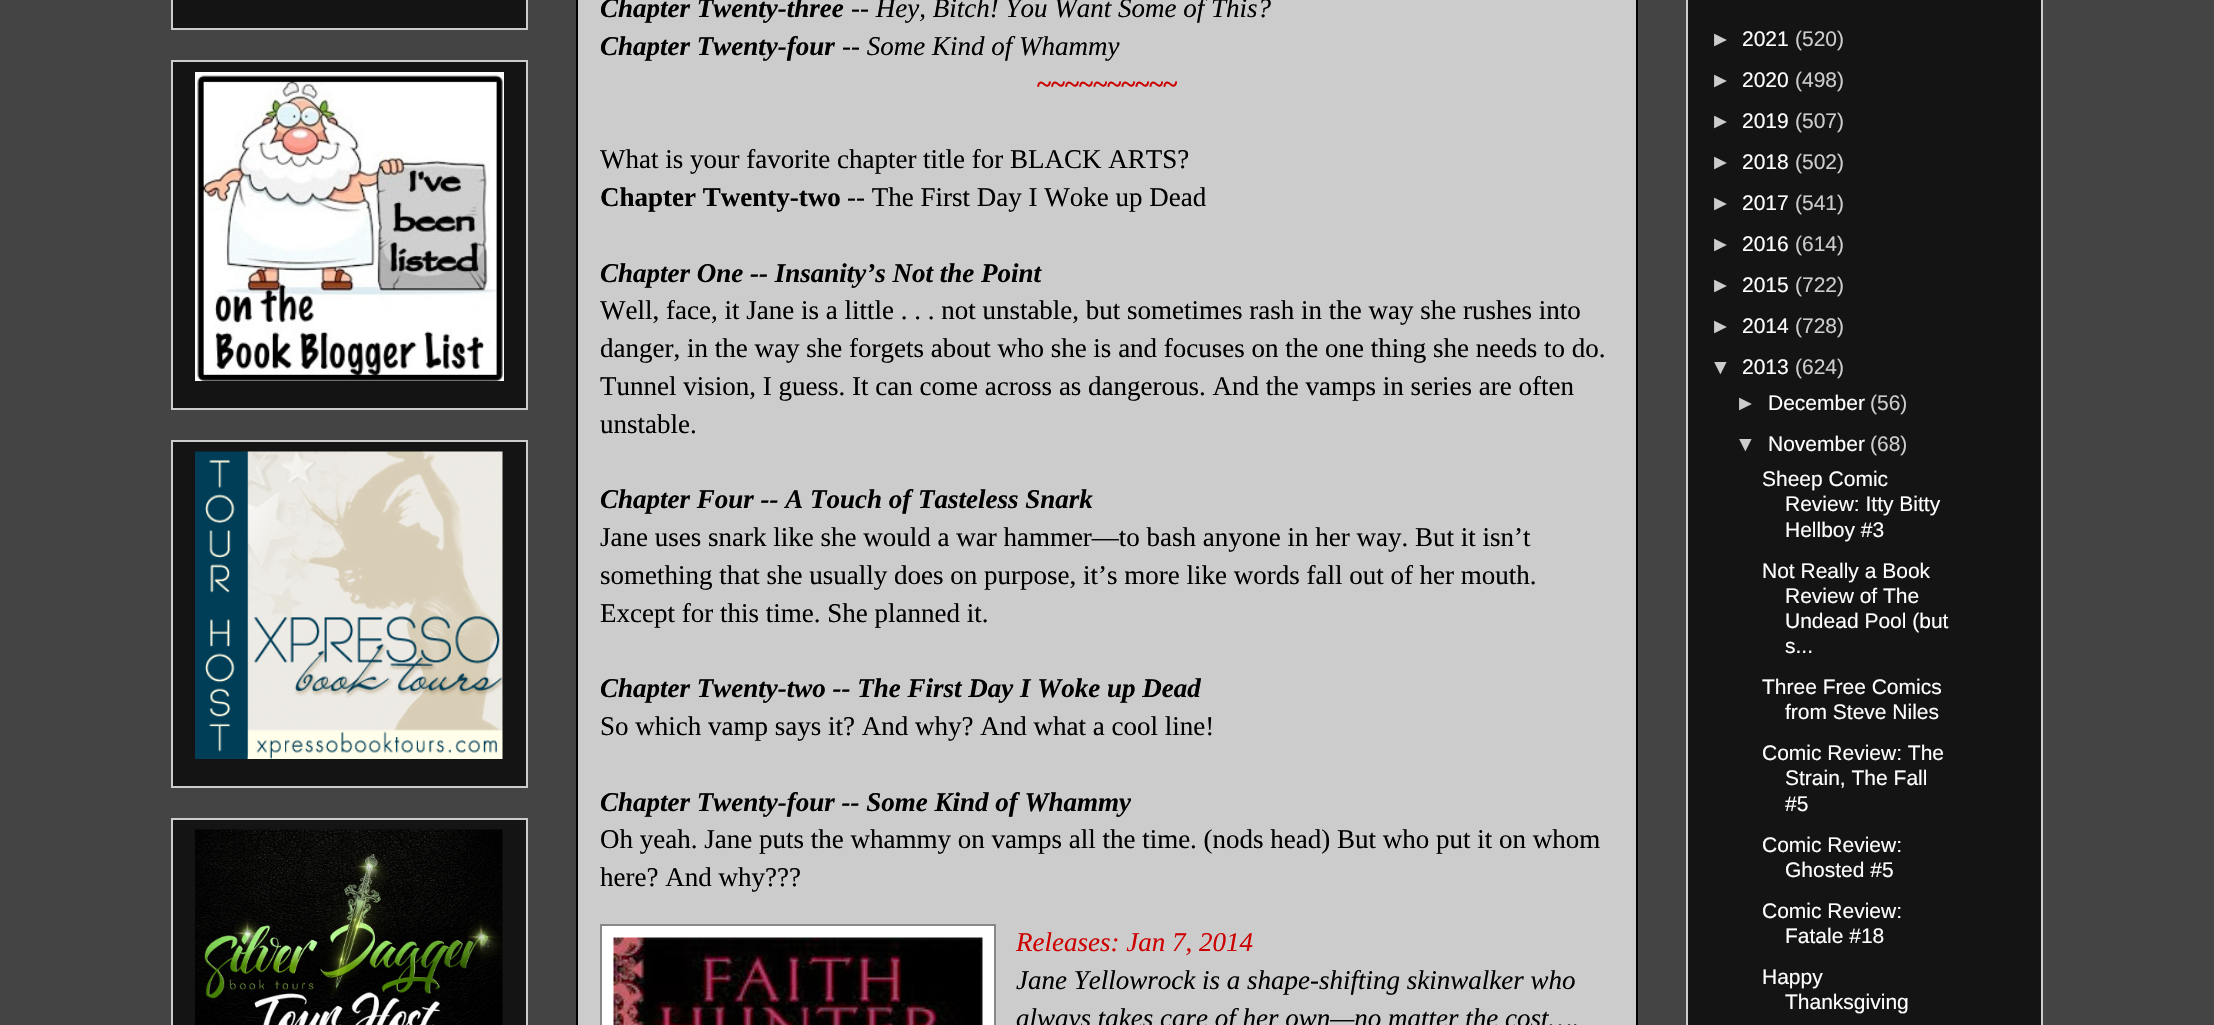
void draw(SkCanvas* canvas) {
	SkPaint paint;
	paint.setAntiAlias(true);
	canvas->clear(0xff444444);
	paint.setColor(0xff141414);
	canvas->drawRect(SkRect::MakeXYWH(172, -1, 355, 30), paint);
	paint.setStroke(true);
	paint.setStrokeWidth(2);
	paint.setColor(0xffcccccc);
	canvas->drawRect(SkRect::MakeXYWH(172, -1, 355, 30), paint);
	paint.setStroke(false);
	paint.setColor(0xff141414);
	canvas->drawRect(SkRect::MakeXYWH(172, 61, 355, 348), paint);
	paint.setStroke(true);
	paint.setColor(0xffcccccc);
	canvas->drawRect(SkRect::MakeXYWH(172, 61, 355, 348), paint);
	canvas->drawImageRect(SkImages::DeferredFromEncodedData(SkData::MakeFromFileName("img1.png")), SkRect::MakeXYWH(195, 72, 309, 309), SkSamplingOptions());
	paint.setStroke(false);
	paint.setColor(0xff141414);
	canvas->drawRect(SkRect::MakeXYWH(172, 441, 355, 346), paint);
	paint.setStroke(true);
	paint.setColor(0xffcccccc);
	canvas->drawRect(SkRect::MakeXYWH(172, 441, 355, 346), paint);
	canvas->drawImageRect(SkImages::DeferredFromEncodedData(SkData::MakeFromFileName("img2.png")), SkRect::MakeXYWH(195, 451, 308, 308), SkSamplingOptions());
	paint.setStroke(false);
	paint.setColor(0xff141414);
	canvas->drawRect(SkRect::MakeXYWH(172, 819, 355, 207), paint);
	paint.setStroke(true);
	paint.setColor(0xffcccccc);
	canvas->drawRect(SkRect::MakeXYWH(172, 819, 355, 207), paint);
	canvas->drawImageRect(SkImages::DeferredFromEncodedData(SkData::MakeFromFileName("img3.png")), SkRect::MakeXYWH(195, 829, 308, 196), SkSamplingOptions());
	paint.setStroke(false);
	canvas->drawRect(SkRect::MakeXYWH(577, -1, 1060, 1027), paint);
	paint.setStroke(true);
	paint.setColor(0xff000000);
	canvas->drawRect(SkRect::MakeXYWH(577, -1, 1060, 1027), paint);
	SkFont f1(fontMgr->matchFamilyStyle("Liberation Serif", SkFontStyle::BoldItalic()), 27);
	f1.setSubpixel(true);
	paint.setStroke(false);
	canvas->drawString("Chapter Twenty-three", 600, 17, f1, paint);
	SkFont f2(fontMgr->matchFamilyStyle("Liberation Serif", SkFontStyle::Italic()), 27);
	f2.setSubpixel(true);
	canvas->drawString("-- Hey, Bitch! You Want Some of This?", 851, 17, f2, paint);
	canvas->drawString("Chapter Twenty-four", 600, 55, f1, paint);
	canvas->drawString("-- Some Kind of Whammy", 842, 55, f2, paint);
	SkFont f3(fontMgr->matchFamilyStyle("Liberation Serif", SkFontStyle::Bold()), 27);
	f3.setSubpixel(true);
	paint.setColor(0xffcc0000);
	canvas->drawString("~~~~~~~~~~", 1037, 93, f3, paint);
	SkFont f4(fontMgr->matchFamilyStyle("Liberation Serif", SkFontStyle::Normal()), 27);
	f4.setSubpixel(true);
	paint.setColor(0xff000000);
	canvas->drawString("What is your favorite chapter title for BLACK ARTS?", 600, 168, f4, paint);
	canvas->drawString("Chapter Twenty-two", 600, 206, f3, paint);
	canvas->drawString("-- The First Day I Woke up Dead", 847, 206, f4, paint);
	canvas->drawString("Chapter One -- Insanity’s Not the Point", 600, 282, f1, paint);
	canvas->drawString("Well, face, it Jane is a little . . . not unstable, but sometimes rash in the way she rushes into", 600, 319, f4, paint);
	canvas->drawString("danger, in the way she forgets about who she is and focuses on the one thing she needs to do.", 600, 357, f4, paint);
	canvas->drawString("Tunnel vision, I guess. It can come across as dangerous. And the vamps in series are often", 600, 395, f4, paint);
	canvas->drawString("unstable.", 600, 433, f4, paint);
	canvas->drawString("Chapter Four -- A Touch of Tasteless Snark", 600, 508, f1, paint);
	canvas->drawString("Jane uses snark like she would a war hammer—to bash anyone in her way. But it isn’t", 600, 546, f4, paint);
	canvas->drawString("something that she usually does on purpose, it’s more like words fall out of her mouth.", 600, 584, f4, paint);
	canvas->drawString("Except for this time. She planned it.", 600, 622, f4, paint);
	canvas->drawString("Chapter Twenty-two -- The First Day I Woke up Dead", 600, 697, f1, paint);
	canvas->drawString("So which vamp says it? And why? And what a cool line!", 600, 735, f4, paint);
	canvas->drawString("Chapter Twenty-four -- Some Kind of Whammy", 600, 811, f1, paint);
	canvas->drawString("Oh yeah. Jane puts the whammy on vamps all the time. (nods head) But who put it on whom", 600, 848, f4, paint);
	canvas->drawString("here? And why?\077?", 600, 886, f4, paint);
	paint.setColor(0xffffffff);
	canvas->drawRect(SkRect::MakeXYWH(601, 925, 394, 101), paint);
	paint.setStroke(true);
	paint.setColor(0xff888888);
	canvas->drawRect(SkRect::MakeXYWH(601, 925, 394, 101), paint);
	canvas->drawImageRect(SkImages::DeferredFromEncodedData(SkData::MakeFromFileName("img4.png")), SkRect::MakeXYWH(613, 937, 370, 88), SkSamplingOptions());
	paint.setStroke(false);
	paint.setColor(0xffcc0000);
	canvas->drawString("Releases: Jan 7, 2014", 1016, 951, f2, paint);
	paint.setColor(0xff000000);
	canvas->drawString("Jane Yellowrock is a shape-shifting skinwalker who", 1016, 989, f2, paint);
	canvas->drawString("always takes care of her own—no matter the cost….", 1016, 1027, f2, paint);
	paint.setColor(0xff141414);
	canvas->drawRect(SkRect::MakeXYWH(1687, -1, 355, 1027), paint);
	paint.setStroke(true);
	paint.setColor(0xffcccccc);
	canvas->drawRect(SkRect::MakeXYWH(1687, -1, 355, 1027), paint);
	SkFont f5(fontMgr->matchFamilyStyle("Liberation Sans", SkFontStyle::Normal()), 21);
	f5.setSubpixel(true);
	paint.setStroke(false);
	canvas->drawString("►", 1710, 46, f5, paint);
	paint.setColor(0xffffffff);
	canvas->drawString("2021", 1742, 46, f5, paint);
	paint.setColor(0xffcccccc);
	canvas->drawString("(520)", 1795, 46, f5, paint);
	canvas->drawString("►", 1710, 87, f5, paint);
	paint.setColor(0xffffffff);
	canvas->drawString("2020", 1742, 87, f5, paint);
	paint.setColor(0xffcccccc);
	canvas->drawString("(498)", 1795, 87, f5, paint);
	canvas->drawString("►", 1710, 128, f5, paint);
	paint.setColor(0xffffffff);
	canvas->drawString("2019", 1742, 128, f5, paint);
	paint.setColor(0xffcccccc);
	canvas->drawString("(507)", 1795, 128, f5, paint);
	canvas->drawString("►", 1710, 169, f5, paint);
	paint.setColor(0xffffffff);
	canvas->drawString("2018", 1742, 169, f5, paint);
	paint.setColor(0xffcccccc);
	canvas->drawString("(502)", 1795, 169, f5, paint);
	canvas->drawString("►", 1710, 210, f5, paint);
	paint.setColor(0xffffffff);
	canvas->drawString("2017", 1742, 210, f5, paint);
	paint.setColor(0xffcccccc);
	canvas->drawString("(541)", 1795, 210, f5, paint);
	canvas->drawString("►", 1710, 251, f5, paint);
	paint.setColor(0xffffffff);
	canvas->drawString("2016", 1742, 251, f5, paint);
	paint.setColor(0xffcccccc);
	canvas->drawString("(614)", 1795, 251, f5, paint);
	canvas->drawString("►", 1710, 292, f5, paint);
	paint.setColor(0xffffffff);
	canvas->drawString("2015", 1742, 292, f5, paint);
	paint.setColor(0xffcccccc);
	canvas->drawString("(722)", 1795, 292, f5, paint);
	canvas->drawString("►", 1710, 333, f5, paint);
	paint.setColor(0xffffffff);
	canvas->drawString("2014", 1742, 333, f5, paint);
	paint.setColor(0xffcccccc);
	canvas->drawString("(728)", 1795, 333, f5, paint);
	canvas->drawString("▼", 1710, 374, f5, paint);
	paint.setColor(0xffffffff);
	canvas->drawString("2013", 1742, 374, f5, paint);
	paint.setColor(0xffcccccc);
	canvas->drawString("(624)", 1795, 374, f5, paint);
	canvas->drawString("►", 1735, 410, f5, paint);
	paint.setColor(0xffffffff);
	canvas->drawString("December", 1768, 410, f5, paint);
	paint.setColor(0xffcccccc);
	canvas->drawString("(56)", 1870, 410, f5, paint);
	canvas->drawString("▼", 1735, 451, f5, paint);
	paint.setColor(0xffffffff);
	canvas->drawString("November", 1768, 451, f5, paint);
	paint.setColor(0xffcccccc);
	canvas->drawString("(68)", 1870, 451, f5, paint);
	paint.setColor(0xffffffff);
	canvas->drawString("Sheep Comic", 1762, 486, f5, paint);
	canvas->drawString("Review: Itty Bitty", 1785, 511, f5, paint);
	canvas->drawString("Hellboy #3", 1785, 537, f5, paint);
	canvas->drawString("Not Really a Book", 1762, 578, f5, paint);
	canvas->drawString("Review of The", 1785, 603, f5, paint);
	canvas->drawString("Undead Pool (but", 1785, 628, f5, paint);
	canvas->drawString("s...", 1785, 653, f5, paint);
	canvas->drawString("Three Free Comics", 1762, 694, f5, paint);
	canvas->drawString("from Steve Niles", 1785, 719, f5, paint);
	canvas->drawString("Comic Review: The", 1762, 760, f5, paint);
	canvas->drawString("Strain, The Fall", 1785, 785, f5, paint);
	canvas->drawString("#5", 1785, 811, f5, paint);
	canvas->drawString("Comic Review:", 1762, 852, f5, paint);
	canvas->drawString("Ghosted #5", 1785, 877, f5, paint);
	canvas->drawString("Comic Review:", 1762, 918, f5, paint);
	canvas->drawString("Fatale #18", 1785, 943, f5, paint);
	canvas->drawString("Happy", 1762, 984, f5, paint);
	canvas->drawString("Thanksgiving", 1785, 1009, f5, paint);
}
